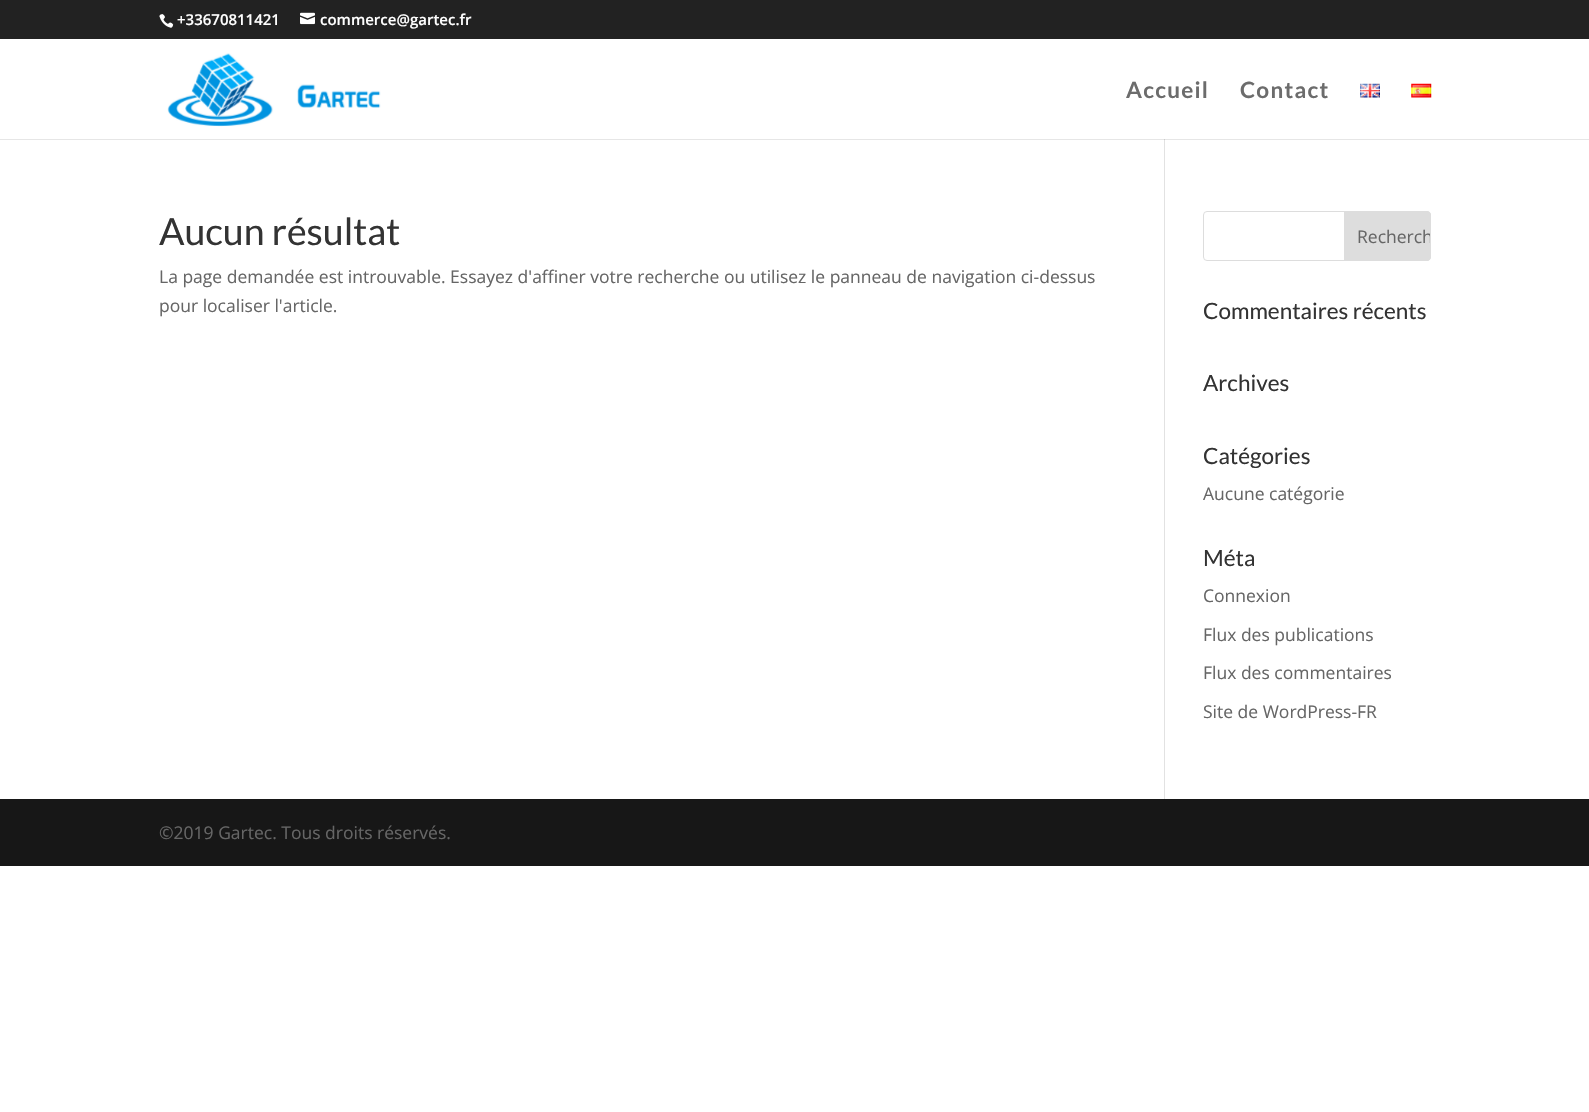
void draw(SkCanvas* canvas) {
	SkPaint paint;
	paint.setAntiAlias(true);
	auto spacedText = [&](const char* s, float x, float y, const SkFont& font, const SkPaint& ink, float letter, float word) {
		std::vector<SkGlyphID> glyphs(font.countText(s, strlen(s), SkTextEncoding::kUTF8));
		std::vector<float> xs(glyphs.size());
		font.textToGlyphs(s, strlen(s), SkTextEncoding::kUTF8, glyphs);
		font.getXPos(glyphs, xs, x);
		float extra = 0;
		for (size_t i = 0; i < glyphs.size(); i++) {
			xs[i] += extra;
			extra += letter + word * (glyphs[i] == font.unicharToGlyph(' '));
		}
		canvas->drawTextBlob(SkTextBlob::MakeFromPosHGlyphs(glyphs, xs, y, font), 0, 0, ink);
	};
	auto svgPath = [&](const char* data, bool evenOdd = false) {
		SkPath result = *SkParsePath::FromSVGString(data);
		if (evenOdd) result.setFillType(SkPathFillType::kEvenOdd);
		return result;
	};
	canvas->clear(0xffffffff);
	paint.setColor(0xffe6e6e6);
	canvas->drawRect(SkRect::MakeXYWH(0, 139, 1589, 1), paint);
	paint.setColor(0xff222222);
	canvas->drawRect(SkRect::MakeXYWH(0, 0, 1589, 39), paint);
	canvas->drawImageRect(SkImages::DeferredFromEncodedData(SkData::MakeFromFileName("img1.png")), SkRect::MakeXYWH(159, 14, 15, 14), SkSamplingOptions());
	SkFont f1(fontMgr->matchFamilyStyle("Open Sans", SkFontStyle(600, SkFontStyle::kNormal_Width, SkFontStyle::kUpright_Slant)), 15);
	f1.setSubpixel(true);
	paint.setColor(0xffffffff);
	canvas->drawString("+33670811421", 177, 25, f1, paint);
	canvas->drawImageRect(SkImages::DeferredFromEncodedData(SkData::MakeFromFileName("img2.png")), SkRect::MakeXYWH(300, 12, 15, 13), SkSamplingOptions());
	canvas->drawString("commerce@gartec.fr", 320, 25, f1, paint);
	canvas->drawImageRect(SkImages::DeferredFromEncodedData(SkData::MakeFromFileName("img3.png")), SkRect::MakeXYWH(167, 53, 214, 74), SkSamplingOptions());
	SkFont f2(fontMgr->matchFamilyStyle("Lato", SkFontStyle::Bold()), 22.5);
	f2.setSubpixel(true);
	paint.setColor(0xff6c6c6c);
	spacedText("Accueil", 1126, 98, f2, paint, 1.25, 0);
	spacedText("Contact", 1240, 98, f2, paint, 1.25, 0);
	canvas->drawImageRect(SkImages::DeferredFromEncodedData(SkData::MakeFromFileName("img4.png")), SkRect::MakeXYWH(1360, 83, 20, 15), SkSamplingOptions());
	canvas->drawImageRect(SkImages::DeferredFromEncodedData(SkData::MakeFromFileName("img5.png")), SkRect::MakeXYWH(1411, 83, 21, 15), SkSamplingOptions());
	paint.setColor(0xffe2e2e2);
	canvas->drawRect(SkRect::MakeXYWH(1164, 139, 1, 660), paint);
	paint.setColor(0xffcbcbcb);
	canvas->drawRect(SkRect::MakeXYWH(1164, 139, 1, 1), paint);
	SkFont f3(fontMgr->matchFamilyStyle("Lato", SkFontStyle::Normal()), 37.5);
	f3.setSubpixel(true);
	paint.setColor(0xff333333);
	canvas->drawString("Aucun résultat", 159, 245, f3, paint);
	SkFont f4(fontMgr->matchFamilyStyle("Open Sans", SkFontStyle::Normal()), 17.5);
	f4.setSubpixel(true);
	paint.setColor(0xff666666);
	canvas->drawString("La page demandée est introuvable. Essayez d'affiner votre recherche ou utilisez le panneau de navigation ci-dessus", 159, 283, f4, paint);
	canvas->drawString("pour localiser l'article.", 159, 312, f4, paint);
	paint.setStroke(true);
	paint.setStrokeWidth(1);
	paint.setColor(0xffdddddd);
	canvas->drawRoundRect(SkRect::MakeXYWH(1203.5, 211.5, 227, 49), 3.5, 3.5, paint);
	paint.setStroke(false);
	canvas->drawPath(svgPath("M1344.5 211.5H1427C1429 211.5 1430.5 213 1430.5 215V257C1430.5 259 1429 260.5 1427 260.5H1344.5Z"), paint);
	paint.setStroke(true);
	canvas->drawPath(svgPath("M1344.5 211.5H1427C1429 211.5 1430.5 213 1430.5 215V257C1430.5 259 1429 260.5 1427 260.5H1344.5Z"), paint);
	canvas->save();
	canvas->clipPath(svgPath("M1345 213H1427.5C1429 213 1430 214 1430 215.5V257.5C1430 259 1429 260 1427.5 260H1345Z"), true);
	paint.setStroke(false);
	paint.setColor(0xff666666);
	canvas->drawString("Recherch", 1357, 243, f4, paint);
	canvas->restore();
	SkFont f5(fontMgr->matchFamilyStyle("Lato", SkFontStyle::Normal()), 22.5);
	f5.setSubpixel(true);
	paint.setColor(0xff333333);
	canvas->drawString("Commentaires récents", 1203, 319, f5, paint);
	canvas->drawString("Archives", 1203, 391, f5, paint);
	canvas->drawString("Catégories", 1203, 464, f5, paint);
	paint.setColor(0xff666666);
	canvas->drawString("Aucune catégorie", 1203, 500, f4, paint);
	paint.setColor(0xff333333);
	canvas->drawString("Méta", 1203, 566, f5, paint);
	paint.setColor(0xff666666);
	canvas->drawString("Connexion", 1203, 602, f4, paint);
	canvas->drawString("Flux des publications", 1203, 641, f4, paint);
	canvas->drawString("Flux des commentaires", 1203, 679, f4, paint);
	canvas->drawString("Site de WordPress-FR", 1203, 718, f4, paint);
	paint.setColor(0xff171717);
	canvas->drawRect(SkRect::MakeXYWH(0, 799, 1589, 67), paint);
	paint.setColor(0xff666666);
	canvas->drawString("©2019 Gartec. Tous droits réservés.", 159, 839, f4, paint);
}
